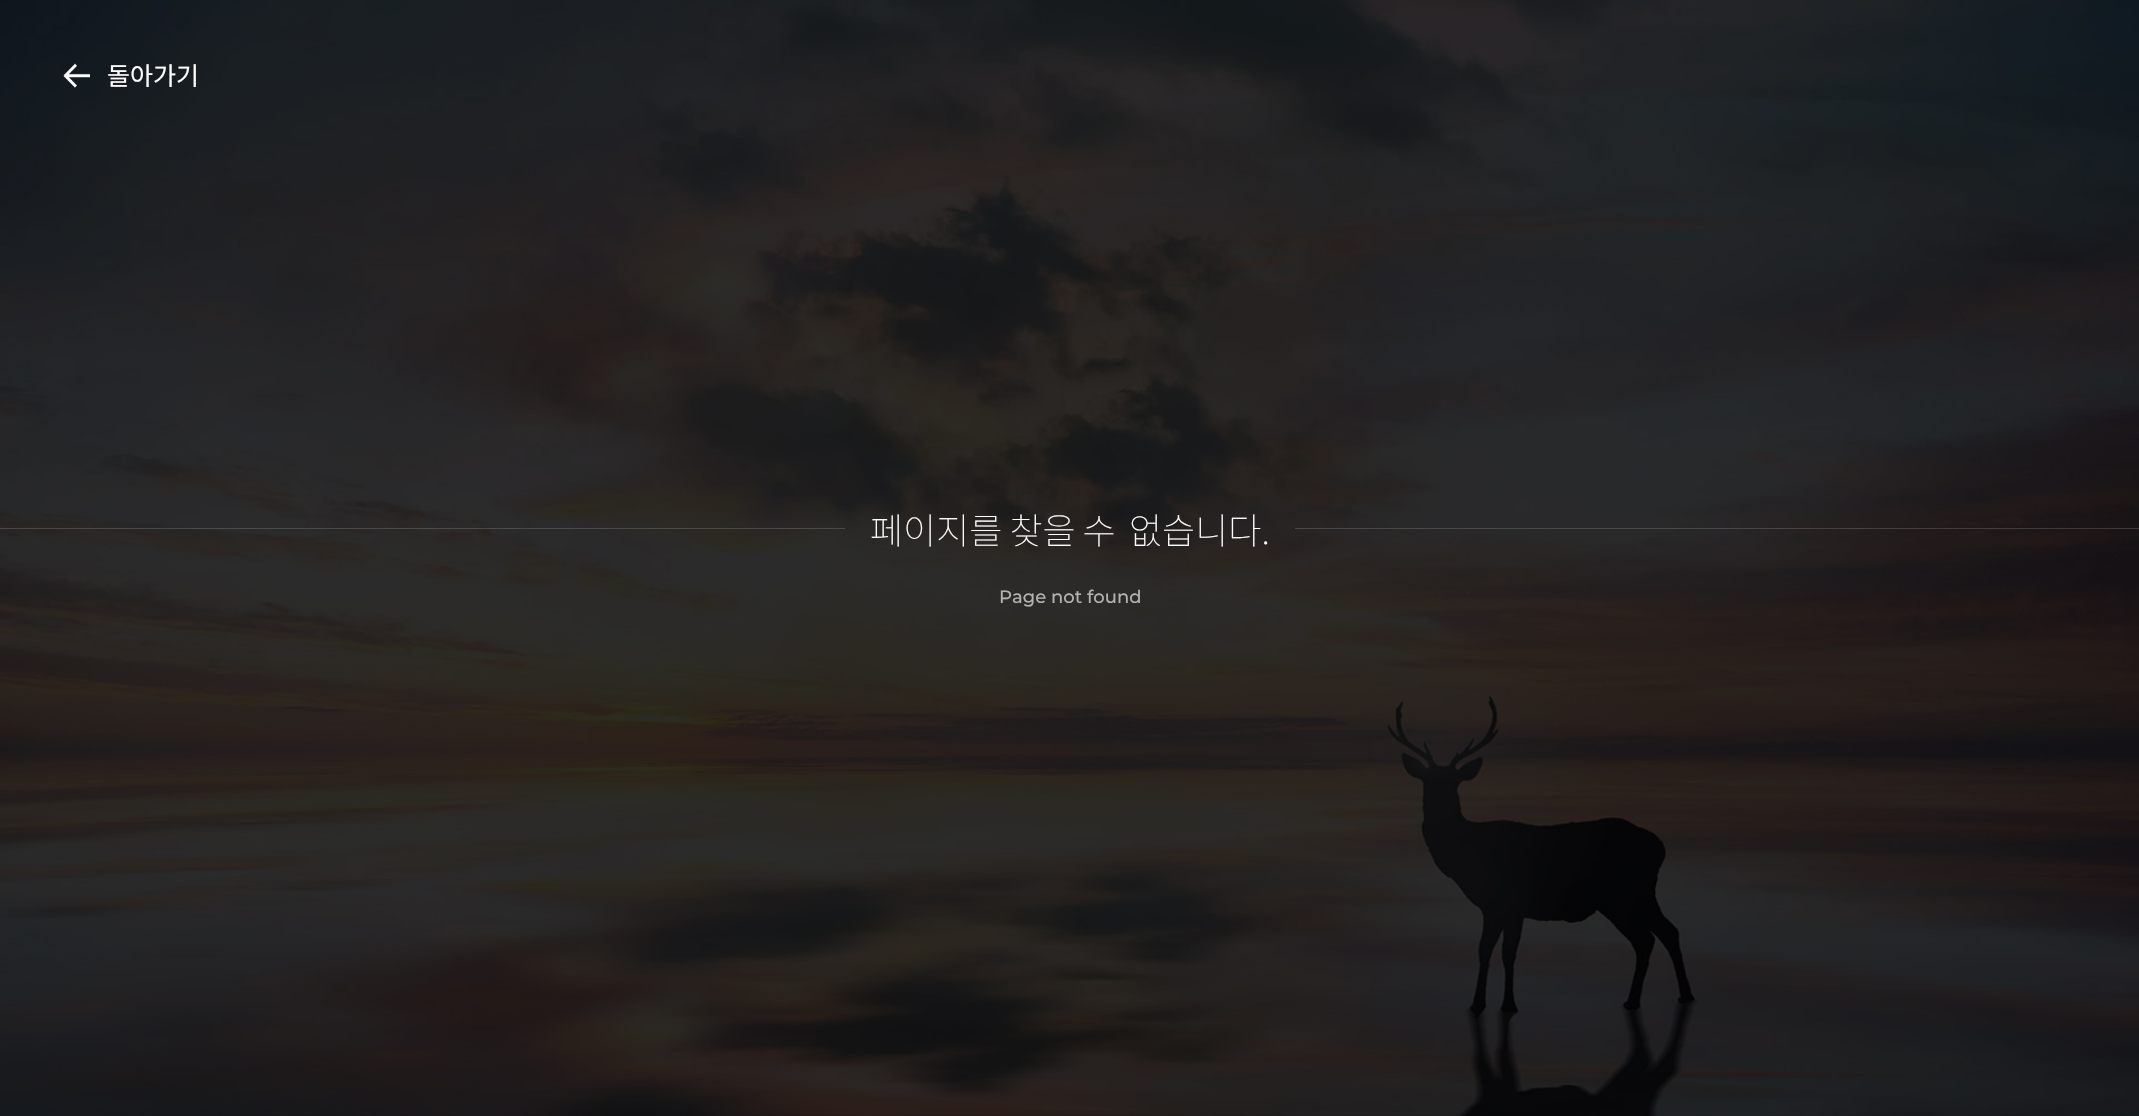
void draw(SkCanvas* canvas) {
	SkPaint paint;
	paint.setAntiAlias(true);
	auto spacedText = [&](const char* s, float x, float y, const SkFont& font, const SkPaint& ink, float letter, float word) {
		std::vector<SkGlyphID> glyphs(font.countText(s, strlen(s), SkTextEncoding::kUTF8));
		std::vector<float> xs(glyphs.size());
		font.textToGlyphs(s, strlen(s), SkTextEncoding::kUTF8, glyphs);
		font.getXPos(glyphs, xs, x);
		float extra = 0;
		for (size_t i = 0; i < glyphs.size(); i++) {
			xs[i] += extra;
			extra += letter + word * (glyphs[i] == font.unicharToGlyph(' '));
		}
		canvas->drawTextBlob(SkTextBlob::MakeFromPosHGlyphs(glyphs, xs, y, font), 0, 0, ink);
	};
	canvas->clear(0xffffffff);
	canvas->drawImageRect(SkImages::DeferredFromEncodedData(SkData::MakeFromFileName("img1.png")), SkRect::MakeXYWH(0, 0, 2139, 1116), SkSamplingOptions());
	canvas->drawImageRect(SkImages::DeferredFromEncodedData(SkData::MakeFromFileName("img2.png")), SkRect::MakeXYWH(63, 63, 27, 25), SkSamplingOptions());
	SkFont f1(fontMgr->matchFamilyStyle("Noto Sans KR", SkFontStyle::Normal()), 25);
	f1.setSubpixel(true);
	paint.setColor(0xffffffff);
	canvas->drawString("돌아가기", 107, 85, f1, paint);
	paint.setColor(0x26ffffff);
	canvas->drawRect(SkRect::MakeXYWH(0, 528, 845, 1), paint);
	SkFont f2(fontMgr->matchFamilyStyle("Noto Sans KR", SkFontStyle(100, SkFontStyle::kNormal_Width, SkFontStyle::kUpright_Slant)), 36);
	f2.setSubpixel(true);
	paint.setColor(0xffffffff);
	spacedText("페이지를 찾을 수", 870, 544, f2, paint, 0, -1);
	spacedText("없습니다.", 1129, 544, f2, paint, 0, -1);
	SkFont f3(fontMgr->matchFamilyStyle("Montserrat", SkFontStyle(500, SkFontStyle::kNormal_Width, SkFontStyle::kUpright_Slant)), 18);
	f3.setSubpixel(true);
	paint.setColor(0xffb2b2b2);
	canvas->drawString("Page not found", 999, 603, f3, paint);
	paint.setColor(0x26ffffff);
	canvas->drawRect(SkRect::MakeXYWH(1295, 528, 844, 1), paint);
}
